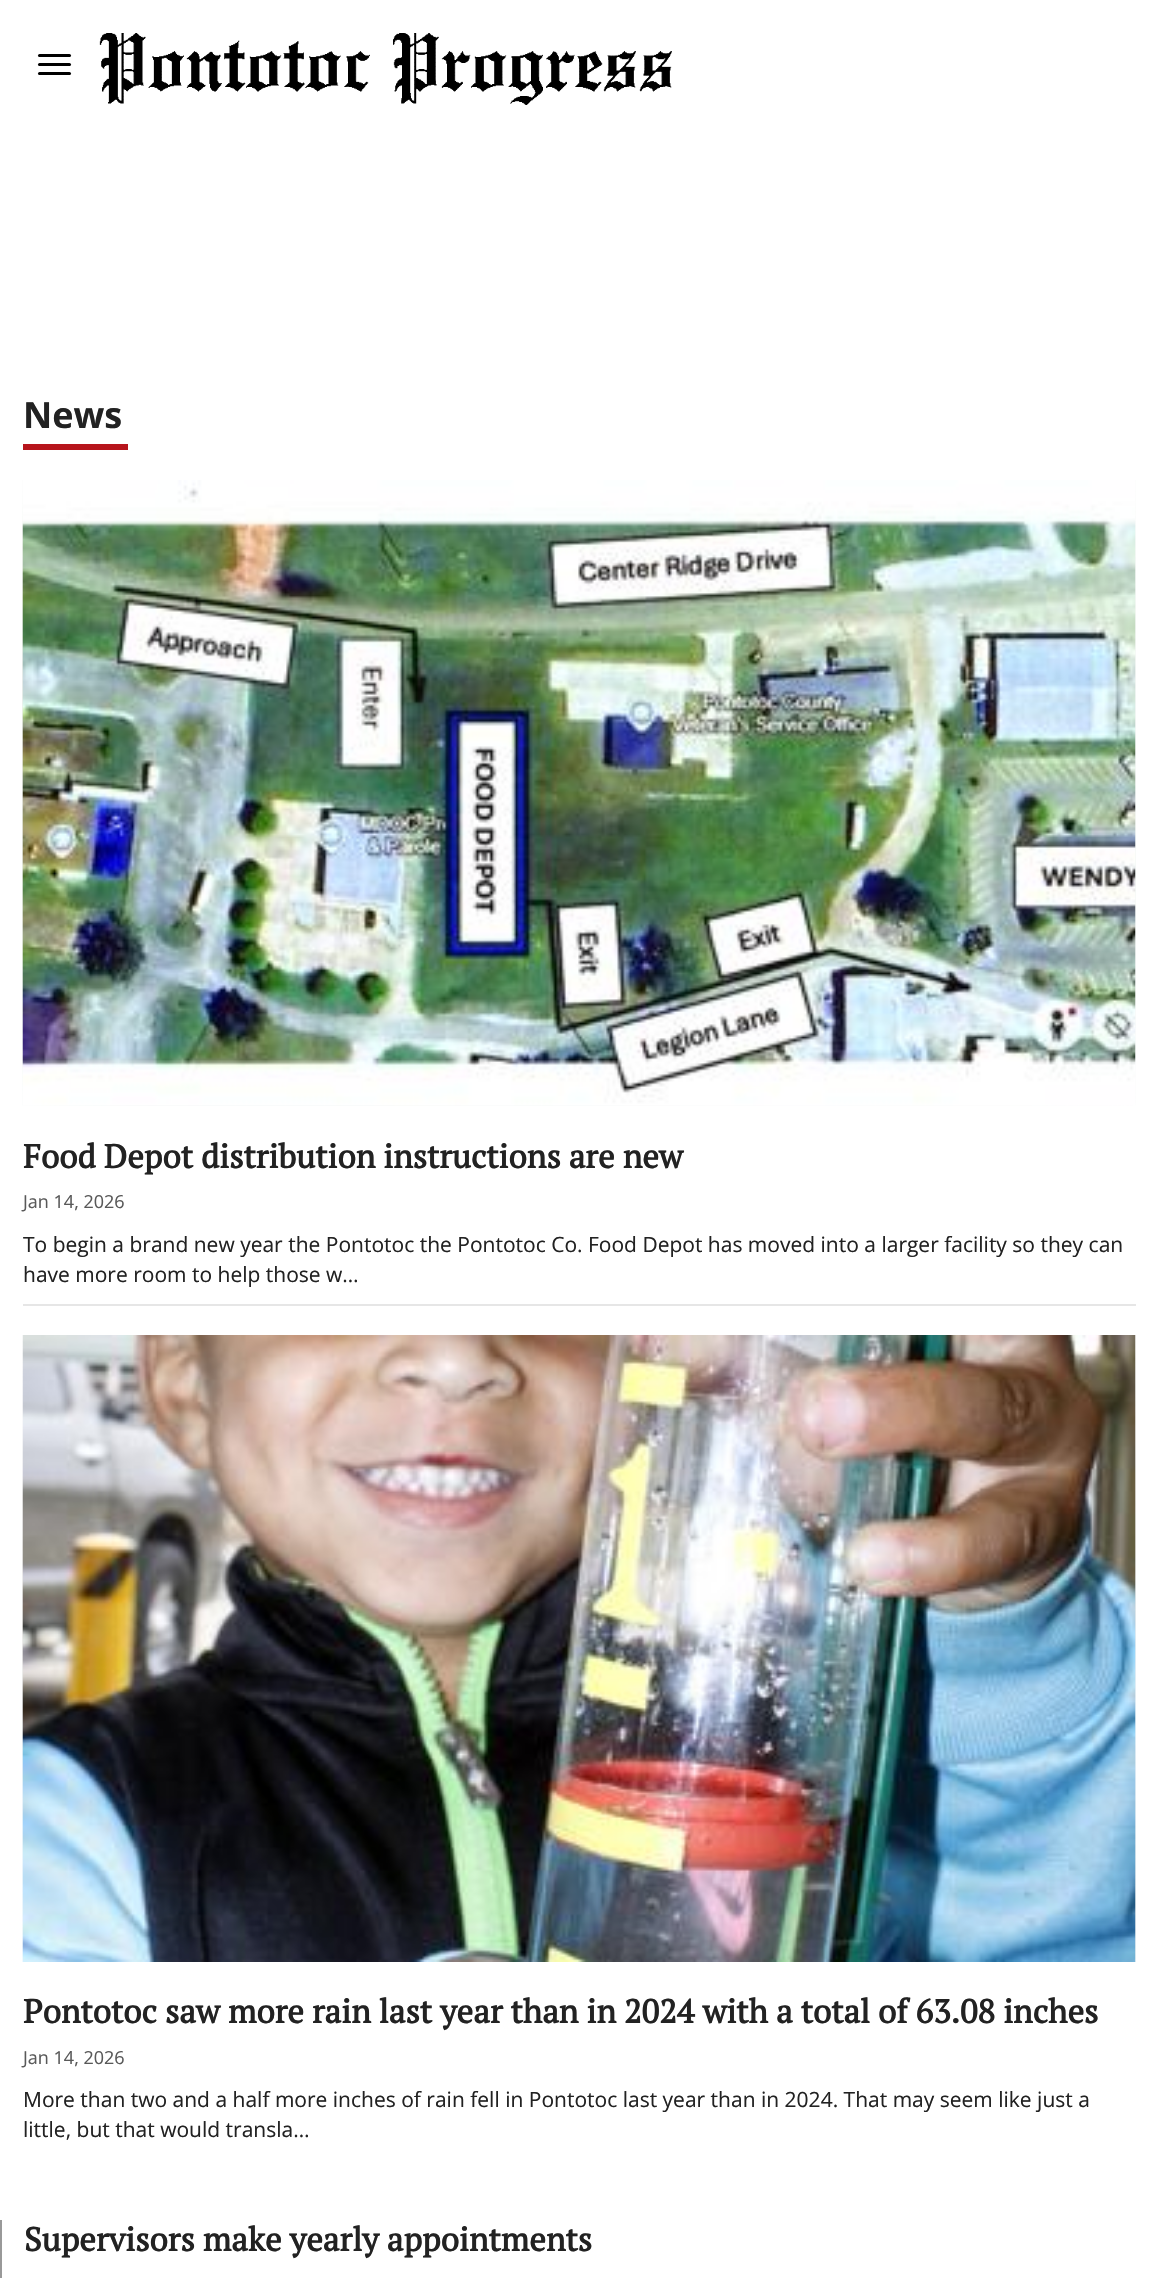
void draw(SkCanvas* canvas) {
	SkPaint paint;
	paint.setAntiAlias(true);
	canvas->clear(0xffffffff);
	paint.setColor(0xff000000);
	canvas->drawRoundRect(SkRect::MakeXYWH(38, 54, 33, 3), 1.5, 1.5, paint);
	canvas->drawRoundRect(SkRect::MakeXYWH(38, 63, 33, 3), 1.5, 1.5, paint);
	canvas->drawRoundRect(SkRect::MakeXYWH(38, 72, 33, 3), 1.5, 1.5, paint);
	canvas->drawImageRect(SkImages::DeferredFromEncodedData(SkData::MakeFromFileName("img1.png")), SkRect::MakeXYWH(99, 33, 573, 72), SkSamplingOptions());
	SkFont f1(fontMgr->matchFamilyStyle("Open Sans", SkFontStyle::Bold()), 36);
	f1.setSubpixel(true);
	paint.setColor(0xff222222);
	canvas->drawString("News", 23, 428, f1, paint);
	paint.setColor(0xffb7151c);
	canvas->drawRect(SkRect::MakeXYWH(23, 444, 105, 6), paint);
	paint.setColor(0xffe6e6e6);
	canvas->drawRect(SkRect::MakeXYWH(23, 1304, 1113, 2), paint);
	canvas->drawImageRect(SkImages::DeferredFromEncodedData(SkData::MakeFromFileName("img2.png")), SkRect::MakeXYWH(22, 480, 1114, 626), SkSamplingOptions());
	canvas->drawImageRect(SkImages::DeferredFromEncodedData(SkData::MakeFromFileName("img3.png")), SkRect::MakeXYWH(22, 480, 1114, 626), SkSamplingOptions());
	SkFont f2(fontMgr->matchFamilyStyle("PT Serif", SkFontStyle::Bold()), 33);
	f2.setSubpixel(true);
	paint.setColor(0xff222222);
	canvas->drawString("Food Depot distribution instructions are new", 23, 1168, f2, paint);
	SkFont f3(fontMgr->matchFamilyStyle("Open Sans", SkFontStyle::Normal()), 18);
	f3.setSubpixel(true);
	paint.setColor(0xff595959);
	canvas->drawString("Jan 14, 2026", 23, 1208, f3, paint);
	SkFont f4(fontMgr->matchFamilyStyle("Open Sans", SkFontStyle::Normal()), 21);
	f4.setSubpixel(true);
	paint.setColor(0xff222222);
	canvas->drawString("To begin a brand new year the Pontotoc the Pontotoc Co. Food Depot has moved into a larger facility so they can", 23, 1252, f4, paint);
	canvas->drawString("have more room to help those w…", 23, 1282, f4, paint);
	canvas->drawImageRect(SkImages::DeferredFromEncodedData(SkData::MakeFromFileName("img4.png")), SkRect::MakeXYWH(22, 1335, 1114, 627), SkSamplingOptions());
	canvas->drawImageRect(SkImages::DeferredFromEncodedData(SkData::MakeFromFileName("img5.png")), SkRect::MakeXYWH(22, 1335, 1114, 627), SkSamplingOptions());
	canvas->drawString("Pontotoc saw more rain last year than in 2024 with a total of 63.08 inches", 23, 2023, f2, paint);
	paint.setColor(0xff595959);
	canvas->drawString("Jan 14, 2026", 23, 2064, f3, paint);
	paint.setColor(0xff222222);
	canvas->drawString("More than two and a half more inches of rain fell in Pontotoc last year than in 2024. That may seem like just a", 23, 2107, f4, paint);
	canvas->drawString("little, but that would transla…", 23, 2137, f4, paint);
	paint.setColor(0xff999999);
	canvas->drawRect(SkRect::MakeXYWH(0, 2220, 2, 58), paint);
	paint.setColor(0xff222222);
	canvas->drawString("Supervisors make yearly appointments", 24, 2251, f2, paint);
}
